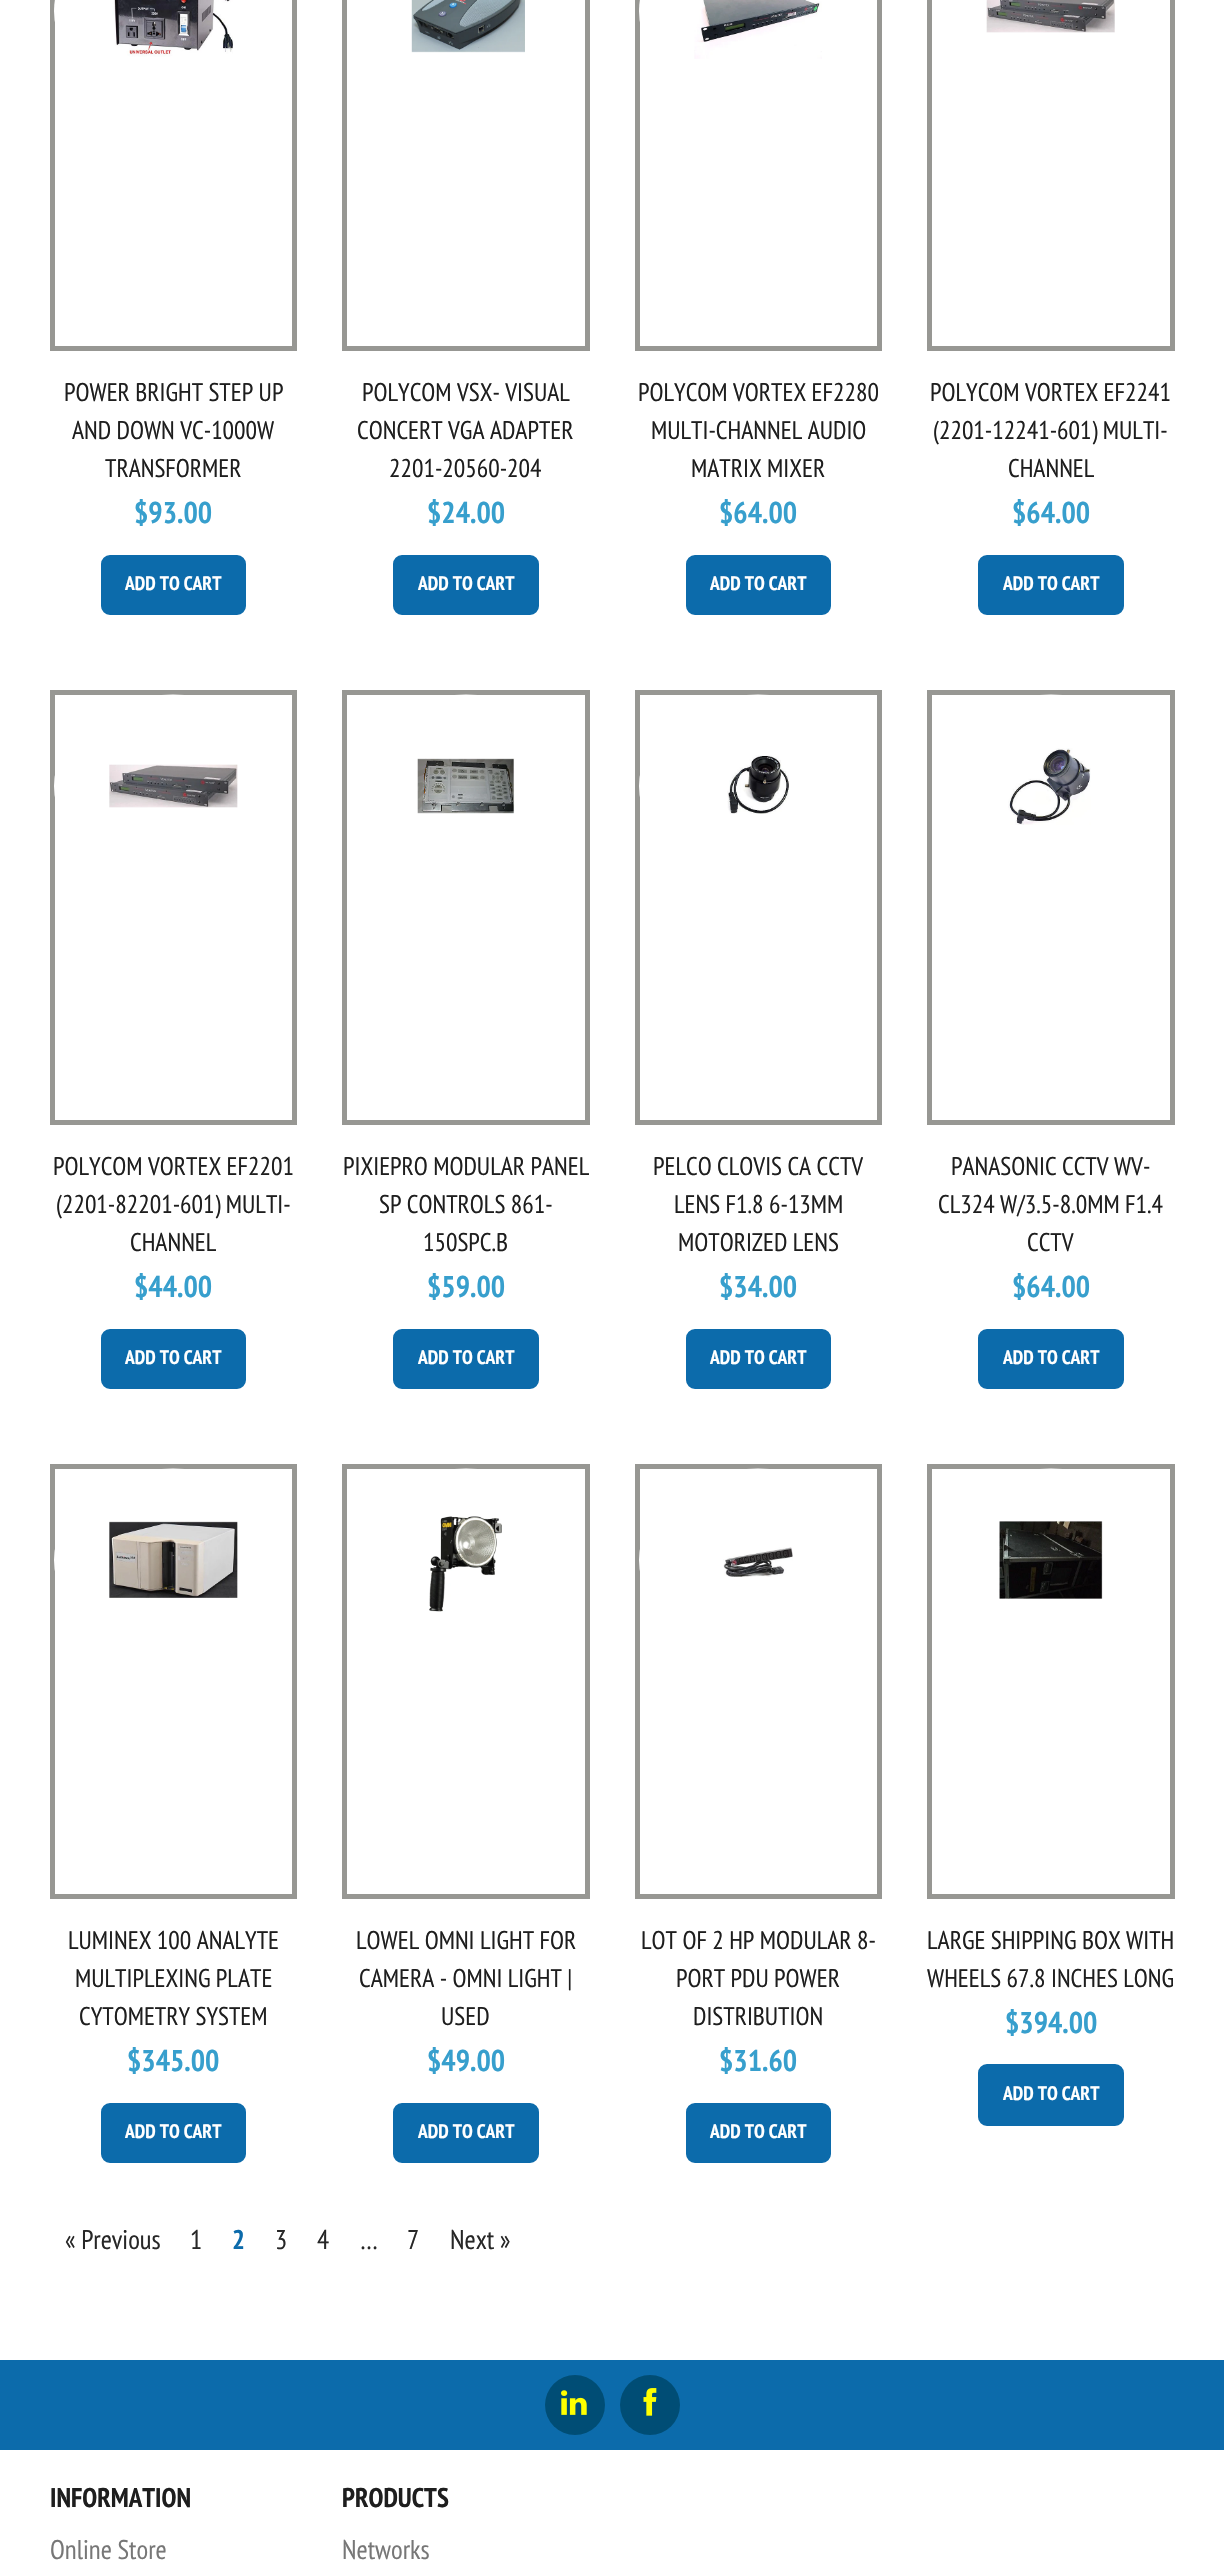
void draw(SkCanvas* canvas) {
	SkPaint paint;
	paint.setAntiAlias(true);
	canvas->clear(0xffffffff);
	paint.setStroke(true);
	paint.setStrokeWidth(5);
	paint.setColor(0xff979793);
	canvas->drawRect(SkRect::MakeXYWH(52.5, -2.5, 242, 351), paint);
	paint.setStroke(false);
	paint.setColor(0xffffffff);
	canvas->drawOval(SkRect::MakeXYWH(54, -80, 238, 182), paint);
	canvas->drawImageRect(SkImages::DeferredFromEncodedData(SkData::MakeFromFileName("img1.png")), SkRect::MakeXYWH(112, 0, 121, 57), SkSamplingOptions());
	SkFont f1(fontMgr->matchFamilyStyle("PT Sans Narrow", SkFontStyle::Normal()), 25.5);
	f1.setSubpixel(true);
	paint.setColor(0xff1e1e1e);
	canvas->drawString("POWER BRIGHT STEP UP", 64, 401, f1, paint);
	canvas->drawString("AND DOWN VC-1000W", 72, 439, f1, paint);
	canvas->drawString("TRANSFORMER", 105, 477, f1, paint);
	SkFont f2(fontMgr->matchFamilyStyle("PT Sans Narrow", SkFontStyle::Bold()), 30);
	f2.setSubpixel(true);
	paint.setColor(0xff379fcd);
	canvas->drawString("$93.00", 134, 523, f2, paint);
	paint.setColor(0xff0c6bab);
	canvas->drawRoundRect(SkRect::MakeXYWH(102, 556, 143, 58), 8, 8, paint);
	paint.setStroke(true);
	paint.setStrokeWidth(2);
	canvas->drawRoundRect(SkRect::MakeXYWH(102, 556, 143, 58), 8, 8, paint);
	SkFont f3(fontMgr->matchFamilyStyle("PT Sans Narrow", SkFontStyle::Bold()), 19.5);
	f3.setSubpixel(true);
	paint.setStroke(false);
	paint.setColor(0xffffffff);
	canvas->drawString("ADD TO CART", 125, 590, f3, paint);
	paint.setStroke(true);
	paint.setStrokeWidth(5);
	paint.setColor(0xff979793);
	canvas->drawRect(SkRect::MakeXYWH(344.5, -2.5, 243, 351), paint);
	canvas->drawImageRect(SkImages::DeferredFromEncodedData(SkData::MakeFromFileName("img2.png")), SkRect::MakeXYWH(411, 0, 114, 53), SkSamplingOptions());
	paint.setStroke(false);
	paint.setColor(0xff1e1e1e);
	canvas->drawString("POLYCOM VSX- VISUAL", 362, 401, f1, paint);
	canvas->drawString("CONCERT VGA ADAPTER", 357, 439, f1, paint);
	canvas->drawString("2201-20560-204", 389, 477, f1, paint);
	paint.setColor(0xff379fcd);
	canvas->drawString("$24.00", 427, 523, f2, paint);
	paint.setColor(0xff0c6bab);
	canvas->drawRoundRect(SkRect::MakeXYWH(394, 556, 144, 58), 8, 8, paint);
	paint.setStroke(true);
	paint.setStrokeWidth(2);
	canvas->drawRoundRect(SkRect::MakeXYWH(394, 556, 144, 58), 8, 8, paint);
	paint.setStroke(false);
	paint.setColor(0xffffffff);
	canvas->drawString("ADD TO CART", 418, 590, f3, paint);
	paint.setStroke(true);
	paint.setStrokeWidth(5);
	paint.setColor(0xff979793);
	canvas->drawRect(SkRect::MakeXYWH(637.5, -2.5, 242, 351), paint);
	paint.setStroke(false);
	paint.setColor(0xffffffff);
	canvas->drawOval(SkRect::MakeXYWH(639, -80, 238, 182), paint);
	canvas->drawImageRect(SkImages::DeferredFromEncodedData(SkData::MakeFromFileName("img3.png")), SkRect::MakeXYWH(694, 0, 128, 59), SkSamplingOptions());
	paint.setColor(0xff1e1e1e);
	canvas->drawString("POLYCOM VORTEX EF2280", 638, 401, f1, paint);
	canvas->drawString("MULTI-CHANNEL AUDIO", 651, 439, f1, paint);
	canvas->drawString("MATRIX MIXER", 691, 477, f1, paint);
	paint.setColor(0xff379fcd);
	canvas->drawString("$64.00", 719, 523, f2, paint);
	paint.setColor(0xff0c6bab);
	canvas->drawRoundRect(SkRect::MakeXYWH(687, 556, 143, 58), 8, 8, paint);
	paint.setStroke(true);
	paint.setStrokeWidth(2);
	canvas->drawRoundRect(SkRect::MakeXYWH(687, 556, 143, 58), 8, 8, paint);
	paint.setStroke(false);
	paint.setColor(0xffffffff);
	canvas->drawString("ADD TO CART", 710, 590, f3, paint);
	paint.setStroke(true);
	paint.setStrokeWidth(5);
	paint.setColor(0xff979793);
	canvas->drawRect(SkRect::MakeXYWH(929.5, -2.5, 243, 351), paint);
	canvas->drawImageRect(SkImages::DeferredFromEncodedData(SkData::MakeFromFileName("img4.png")), SkRect::MakeXYWH(986, 0, 129, 33), SkSamplingOptions());
	paint.setStroke(false);
	paint.setColor(0xff1e1e1e);
	canvas->drawString("POLYCOM VORTEX EF2241", 930, 401, f1, paint);
	canvas->drawString("(2201-12241-601) MULTI-", 933, 439, f1, paint);
	canvas->drawString("CHANNEL", 1008, 477, f1, paint);
	paint.setColor(0xff379fcd);
	canvas->drawString("$64.00", 1012, 523, f2, paint);
	paint.setColor(0xff0c6bab);
	canvas->drawRoundRect(SkRect::MakeXYWH(979, 556, 144, 58), 8, 8, paint);
	paint.setStroke(true);
	paint.setStrokeWidth(2);
	canvas->drawRoundRect(SkRect::MakeXYWH(979, 556, 144, 58), 8, 8, paint);
	paint.setStroke(false);
	paint.setColor(0xffffffff);
	canvas->drawString("ADD TO CART", 1003, 590, f3, paint);
	paint.setStroke(true);
	paint.setStrokeWidth(5);
	paint.setColor(0xff979793);
	canvas->drawRect(SkRect::MakeXYWH(52.5, 692.5, 242, 430), paint);
	paint.setStroke(false);
	paint.setColor(0xffffffff);
	canvas->drawOval(SkRect::MakeXYWH(54, 694.5, 238, 183), paint);
	canvas->drawImageRect(SkImages::DeferredFromEncodedData(SkData::MakeFromFileName("img5.png")), SkRect::MakeXYWH(109, 764, 129, 44), SkSamplingOptions());
	paint.setColor(0xff1e1e1e);
	canvas->drawString("POLYCOM VORTEX EF2201", 53, 1175, f1, paint);
	canvas->drawString("(2201-82201-601) MULTI-", 56, 1213, f1, paint);
	canvas->drawString("CHANNEL", 130, 1251, f1, paint);
	paint.setColor(0xff379fcd);
	canvas->drawString("$44.00", 134, 1297, f2, paint);
	paint.setColor(0xff0c6bab);
	canvas->drawRoundRect(SkRect::MakeXYWH(102, 1330, 143, 58), 8, 8, paint);
	paint.setStroke(true);
	paint.setStrokeWidth(2);
	canvas->drawRoundRect(SkRect::MakeXYWH(102, 1330, 143, 58), 8, 8, paint);
	paint.setStroke(false);
	paint.setColor(0xffffffff);
	canvas->drawString("ADD TO CART", 125, 1364, f3, paint);
	paint.setStroke(true);
	paint.setStrokeWidth(5);
	paint.setColor(0xff979793);
	canvas->drawRect(SkRect::MakeXYWH(344.5, 692.5, 243, 430), paint);
	paint.setStroke(false);
	paint.setColor(0xffffffff);
	canvas->drawOval(SkRect::MakeXYWH(347, 694.5, 238, 183), paint);
	canvas->drawImageRect(SkImages::DeferredFromEncodedData(SkData::MakeFromFileName("img6.png")), SkRect::MakeXYWH(417, 758, 98, 56), SkSamplingOptions());
	paint.setColor(0xff1e1e1e);
	canvas->drawString("PIXIEPRO MODULAR PANEL", 343, 1175, f1, paint);
	canvas->drawString("SP CONTROLS 861-", 379, 1213, f1, paint);
	canvas->drawString("150SPC.B", 423, 1251, f1, paint);
	paint.setColor(0xff379fcd);
	canvas->drawString("$59.00", 427, 1297, f2, paint);
	paint.setColor(0xff0c6bab);
	canvas->drawRoundRect(SkRect::MakeXYWH(394, 1330, 144, 58), 8, 8, paint);
	paint.setStroke(true);
	paint.setStrokeWidth(2);
	canvas->drawRoundRect(SkRect::MakeXYWH(394, 1330, 144, 58), 8, 8, paint);
	paint.setStroke(false);
	paint.setColor(0xffffffff);
	canvas->drawString("ADD TO CART", 418, 1364, f3, paint);
	paint.setStroke(true);
	paint.setStrokeWidth(5);
	paint.setColor(0xff979793);
	canvas->drawRect(SkRect::MakeXYWH(637.5, 692.5, 242, 430), paint);
	paint.setStroke(false);
	paint.setColor(0xffffffff);
	canvas->drawOval(SkRect::MakeXYWH(639, 694.5, 238, 183), paint);
	canvas->drawImageRect(SkImages::DeferredFromEncodedData(SkData::MakeFromFileName("img7.png")), SkRect::MakeXYWH(727, 755, 62, 59), SkSamplingOptions());
	paint.setColor(0xff1e1e1e);
	canvas->drawString("PELCO CLOVIS CA CCTV", 653, 1175, f1, paint);
	canvas->drawString("LENS F1.8 6-13MM", 674, 1213, f1, paint);
	canvas->drawString("MOTORIZED LENS", 678, 1251, f1, paint);
	paint.setColor(0xff379fcd);
	canvas->drawString("$34.00", 719, 1297, f2, paint);
	paint.setColor(0xff0c6bab);
	canvas->drawRoundRect(SkRect::MakeXYWH(687, 1330, 143, 58), 8, 8, paint);
	paint.setStroke(true);
	paint.setStrokeWidth(2);
	canvas->drawRoundRect(SkRect::MakeXYWH(687, 1330, 143, 58), 8, 8, paint);
	paint.setStroke(false);
	paint.setColor(0xffffffff);
	canvas->drawString("ADD TO CART", 710, 1364, f3, paint);
	paint.setStroke(true);
	paint.setStrokeWidth(5);
	paint.setColor(0xff979793);
	canvas->drawRect(SkRect::MakeXYWH(929.5, 692.5, 243, 430), paint);
	paint.setStroke(false);
	paint.setColor(0xffffffff);
	canvas->drawOval(SkRect::MakeXYWH(932, 694.5, 238, 183), paint);
	canvas->drawImageRect(SkImages::DeferredFromEncodedData(SkData::MakeFromFileName("img8.png")), SkRect::MakeXYWH(1008, 748, 83, 77), SkSamplingOptions());
	paint.setColor(0xff1e1e1e);
	canvas->drawString("PANASONIC CCTV WV-", 951, 1175, f1, paint);
	canvas->drawString("CL324 W/3.5-8.0MM F1.4", 938, 1213, f1, paint);
	canvas->drawString("CCTV", 1027, 1251, f1, paint);
	paint.setColor(0xff379fcd);
	canvas->drawString("$64.00", 1012, 1297, f2, paint);
	paint.setColor(0xff0c6bab);
	canvas->drawRoundRect(SkRect::MakeXYWH(979, 1330, 144, 58), 8, 8, paint);
	paint.setStroke(true);
	paint.setStrokeWidth(2);
	canvas->drawRoundRect(SkRect::MakeXYWH(979, 1330, 144, 58), 8, 8, paint);
	paint.setStroke(false);
	paint.setColor(0xffffffff);
	canvas->drawString("ADD TO CART", 1003, 1364, f3, paint);
	paint.setStroke(true);
	paint.setStrokeWidth(5);
	paint.setColor(0xff979793);
	canvas->drawRect(SkRect::MakeXYWH(52.5, 1466.5, 242, 430), paint);
	paint.setStroke(false);
	paint.setColor(0xffffffff);
	canvas->drawOval(SkRect::MakeXYWH(54, 1468.5, 238, 183), paint);
	canvas->drawImageRect(SkImages::DeferredFromEncodedData(SkData::MakeFromFileName("img9.png")), SkRect::MakeXYWH(109, 1521, 129, 77), SkSamplingOptions());
	paint.setColor(0xff1e1e1e);
	canvas->drawString("LUMINEX 100 ANALYTE", 68, 1949, f1, paint);
	canvas->drawString("MULTIPLEXING PLATE", 75, 1987, f1, paint);
	canvas->drawString("CYTOMETRY SYSTEM", 79, 2025, f1, paint);
	paint.setColor(0xff379fcd);
	canvas->drawString("$345.00", 127, 2071, f2, paint);
	paint.setColor(0xff0c6bab);
	canvas->drawRoundRect(SkRect::MakeXYWH(102, 2104, 143, 58), 8, 8, paint);
	paint.setStroke(true);
	paint.setStrokeWidth(2);
	canvas->drawRoundRect(SkRect::MakeXYWH(102, 2104, 143, 58), 8, 8, paint);
	paint.setStroke(false);
	paint.setColor(0xffffffff);
	canvas->drawString("ADD TO CART", 125, 2138, f3, paint);
	paint.setStroke(true);
	paint.setStrokeWidth(5);
	paint.setColor(0xff979793);
	canvas->drawRect(SkRect::MakeXYWH(344.5, 1466.5, 243, 430), paint);
	paint.setStroke(false);
	paint.setColor(0xffffffff);
	canvas->drawOval(SkRect::MakeXYWH(347, 1468.5, 238, 183), paint);
	canvas->drawImageRect(SkImages::DeferredFromEncodedData(SkData::MakeFromFileName("img10.png")), SkRect::MakeXYWH(429, 1516, 73, 96), SkSamplingOptions());
	paint.setColor(0xff1e1e1e);
	canvas->drawString("LOWEL OMNI LIGHT FOR", 356, 1949, f1, paint);
	canvas->drawString("CAMERA - OMNI LIGHT |", 359, 1987, f1, paint);
	canvas->drawString("USED", 441, 2025, f1, paint);
	paint.setColor(0xff379fcd);
	canvas->drawString("$49.00", 427, 2071, f2, paint);
	paint.setColor(0xff0c6bab);
	canvas->drawRoundRect(SkRect::MakeXYWH(394, 2104, 144, 58), 8, 8, paint);
	paint.setStroke(true);
	paint.setStrokeWidth(2);
	canvas->drawRoundRect(SkRect::MakeXYWH(394, 2104, 144, 58), 8, 8, paint);
	paint.setStroke(false);
	paint.setColor(0xffffffff);
	canvas->drawString("ADD TO CART", 418, 2138, f3, paint);
	paint.setStroke(true);
	paint.setStrokeWidth(5);
	paint.setColor(0xff979793);
	canvas->drawRect(SkRect::MakeXYWH(637.5, 1466.5, 242, 430), paint);
	paint.setStroke(false);
	paint.setColor(0xffffffff);
	canvas->drawOval(SkRect::MakeXYWH(639, 1468.5, 238, 183), paint);
	canvas->drawImageRect(SkImages::DeferredFromEncodedData(SkData::MakeFromFileName("img11.png")), SkRect::MakeXYWH(723, 1547, 70, 30), SkSamplingOptions());
	paint.setColor(0xff1e1e1e);
	canvas->drawString("LOT OF 2 HP MODULAR 8-", 641, 1949, f1, paint);
	canvas->drawString("PORT PDU POWER", 676, 1987, f1, paint);
	canvas->drawString("DISTRIBUTION", 693, 2025, f1, paint);
	paint.setColor(0xff379fcd);
	canvas->drawString("$31.60", 719, 2071, f2, paint);
	paint.setColor(0xff0c6bab);
	canvas->drawRoundRect(SkRect::MakeXYWH(687, 2104, 143, 58), 8, 8, paint);
	paint.setStroke(true);
	paint.setStrokeWidth(2);
	canvas->drawRoundRect(SkRect::MakeXYWH(687, 2104, 143, 58), 8, 8, paint);
	paint.setStroke(false);
	paint.setColor(0xffffffff);
	canvas->drawString("ADD TO CART", 710, 2138, f3, paint);
	paint.setStroke(true);
	paint.setStrokeWidth(5);
	paint.setColor(0xff979793);
	canvas->drawRect(SkRect::MakeXYWH(929.5, 1466.5, 243, 430), paint);
	paint.setStroke(false);
	paint.setColor(0xffffffff);
	canvas->drawOval(SkRect::MakeXYWH(932, 1468.5, 238, 183), paint);
	canvas->drawImageRect(SkImages::DeferredFromEncodedData(SkData::MakeFromFileName("img12.png")), SkRect::MakeXYWH(999, 1521, 104, 78), SkSamplingOptions());
	paint.setColor(0xff1e1e1e);
	canvas->drawString("LARGE SHIPPING BOX WITH", 927, 1949, f1, paint);
	canvas->drawString("WHEELS 67.8 INCHES LONG", 927, 1987, f1, paint);
	paint.setColor(0xff379fcd);
	canvas->drawString("$394.00", 1005, 2033, f2, paint);
	paint.setColor(0xff0c6bab);
	canvas->drawRoundRect(SkRect::MakeXYWH(979, 2065, 144, 60), 8, 8, paint);
	paint.setStroke(true);
	paint.setStrokeWidth(2);
	canvas->drawRoundRect(SkRect::MakeXYWH(979, 2065, 144, 60), 8, 8, paint);
	paint.setStroke(false);
	paint.setColor(0xffffffff);
	canvas->drawString("ADD TO CART", 1003, 2100, f3, paint);
	SkFont f4(fontMgr->matchFamilyStyle("PT Sans Narrow", SkFontStyle::Normal()), 27);
	f4.setSubpixel(true);
	paint.setColor(0xff272727);
	canvas->drawString("« Previous", 65, 2249, f4, paint);
	canvas->drawString("1", 190, 2249, f4, paint);
	SkFont f5(fontMgr->matchFamilyStyle("PT Sans Narrow", SkFontStyle::Bold()), 27);
	f5.setSubpixel(true);
	paint.setColor(0xff0c6bab);
	canvas->drawString("2", 232, 2249, f5, paint);
	paint.setColor(0xff272727);
	canvas->drawString("3", 275, 2249, f4, paint);
	canvas->drawString("4", 317, 2249, f4, paint);
	canvas->drawString("…", 360, 2249, f4, paint);
	canvas->drawString("7", 407, 2249, f4, paint);
	canvas->drawString("Next »", 450, 2249, f4, paint);
	paint.setColor(0xff0c6bab);
	canvas->drawRect(SkRect::MakeXYWH(0, 2360, 1224, 90), paint);
	paint.setColor(0xff004d75);
	canvas->drawCircle(575, 2405, 30, paint);
	canvas->drawImageRect(SkImages::DeferredFromEncodedData(SkData::MakeFromFileName("img13.png")), SkRect::MakeXYWH(561, 2390, 26, 25), SkSamplingOptions());
	canvas->drawCircle(650, 2405, 30, paint);
	canvas->drawImageRect(SkImages::DeferredFromEncodedData(SkData::MakeFromFileName("img14.png")), SkRect::MakeXYWH(643, 2388, 14, 28), SkSamplingOptions());
	paint.setColor(0xff1e1e1e);
	canvas->drawString("INFORMATION", 50, 2507, f5, paint);
	paint.setColor(0xff777777);
	canvas->drawString("Online Store", 50, 2559, f4, paint);
	paint.setColor(0xff1e1e1e);
	canvas->drawString("PRODUCTS", 342, 2507, f5, paint);
	paint.setColor(0xff777777);
	canvas->drawString("Networks", 342, 2559, f4, paint);
}
